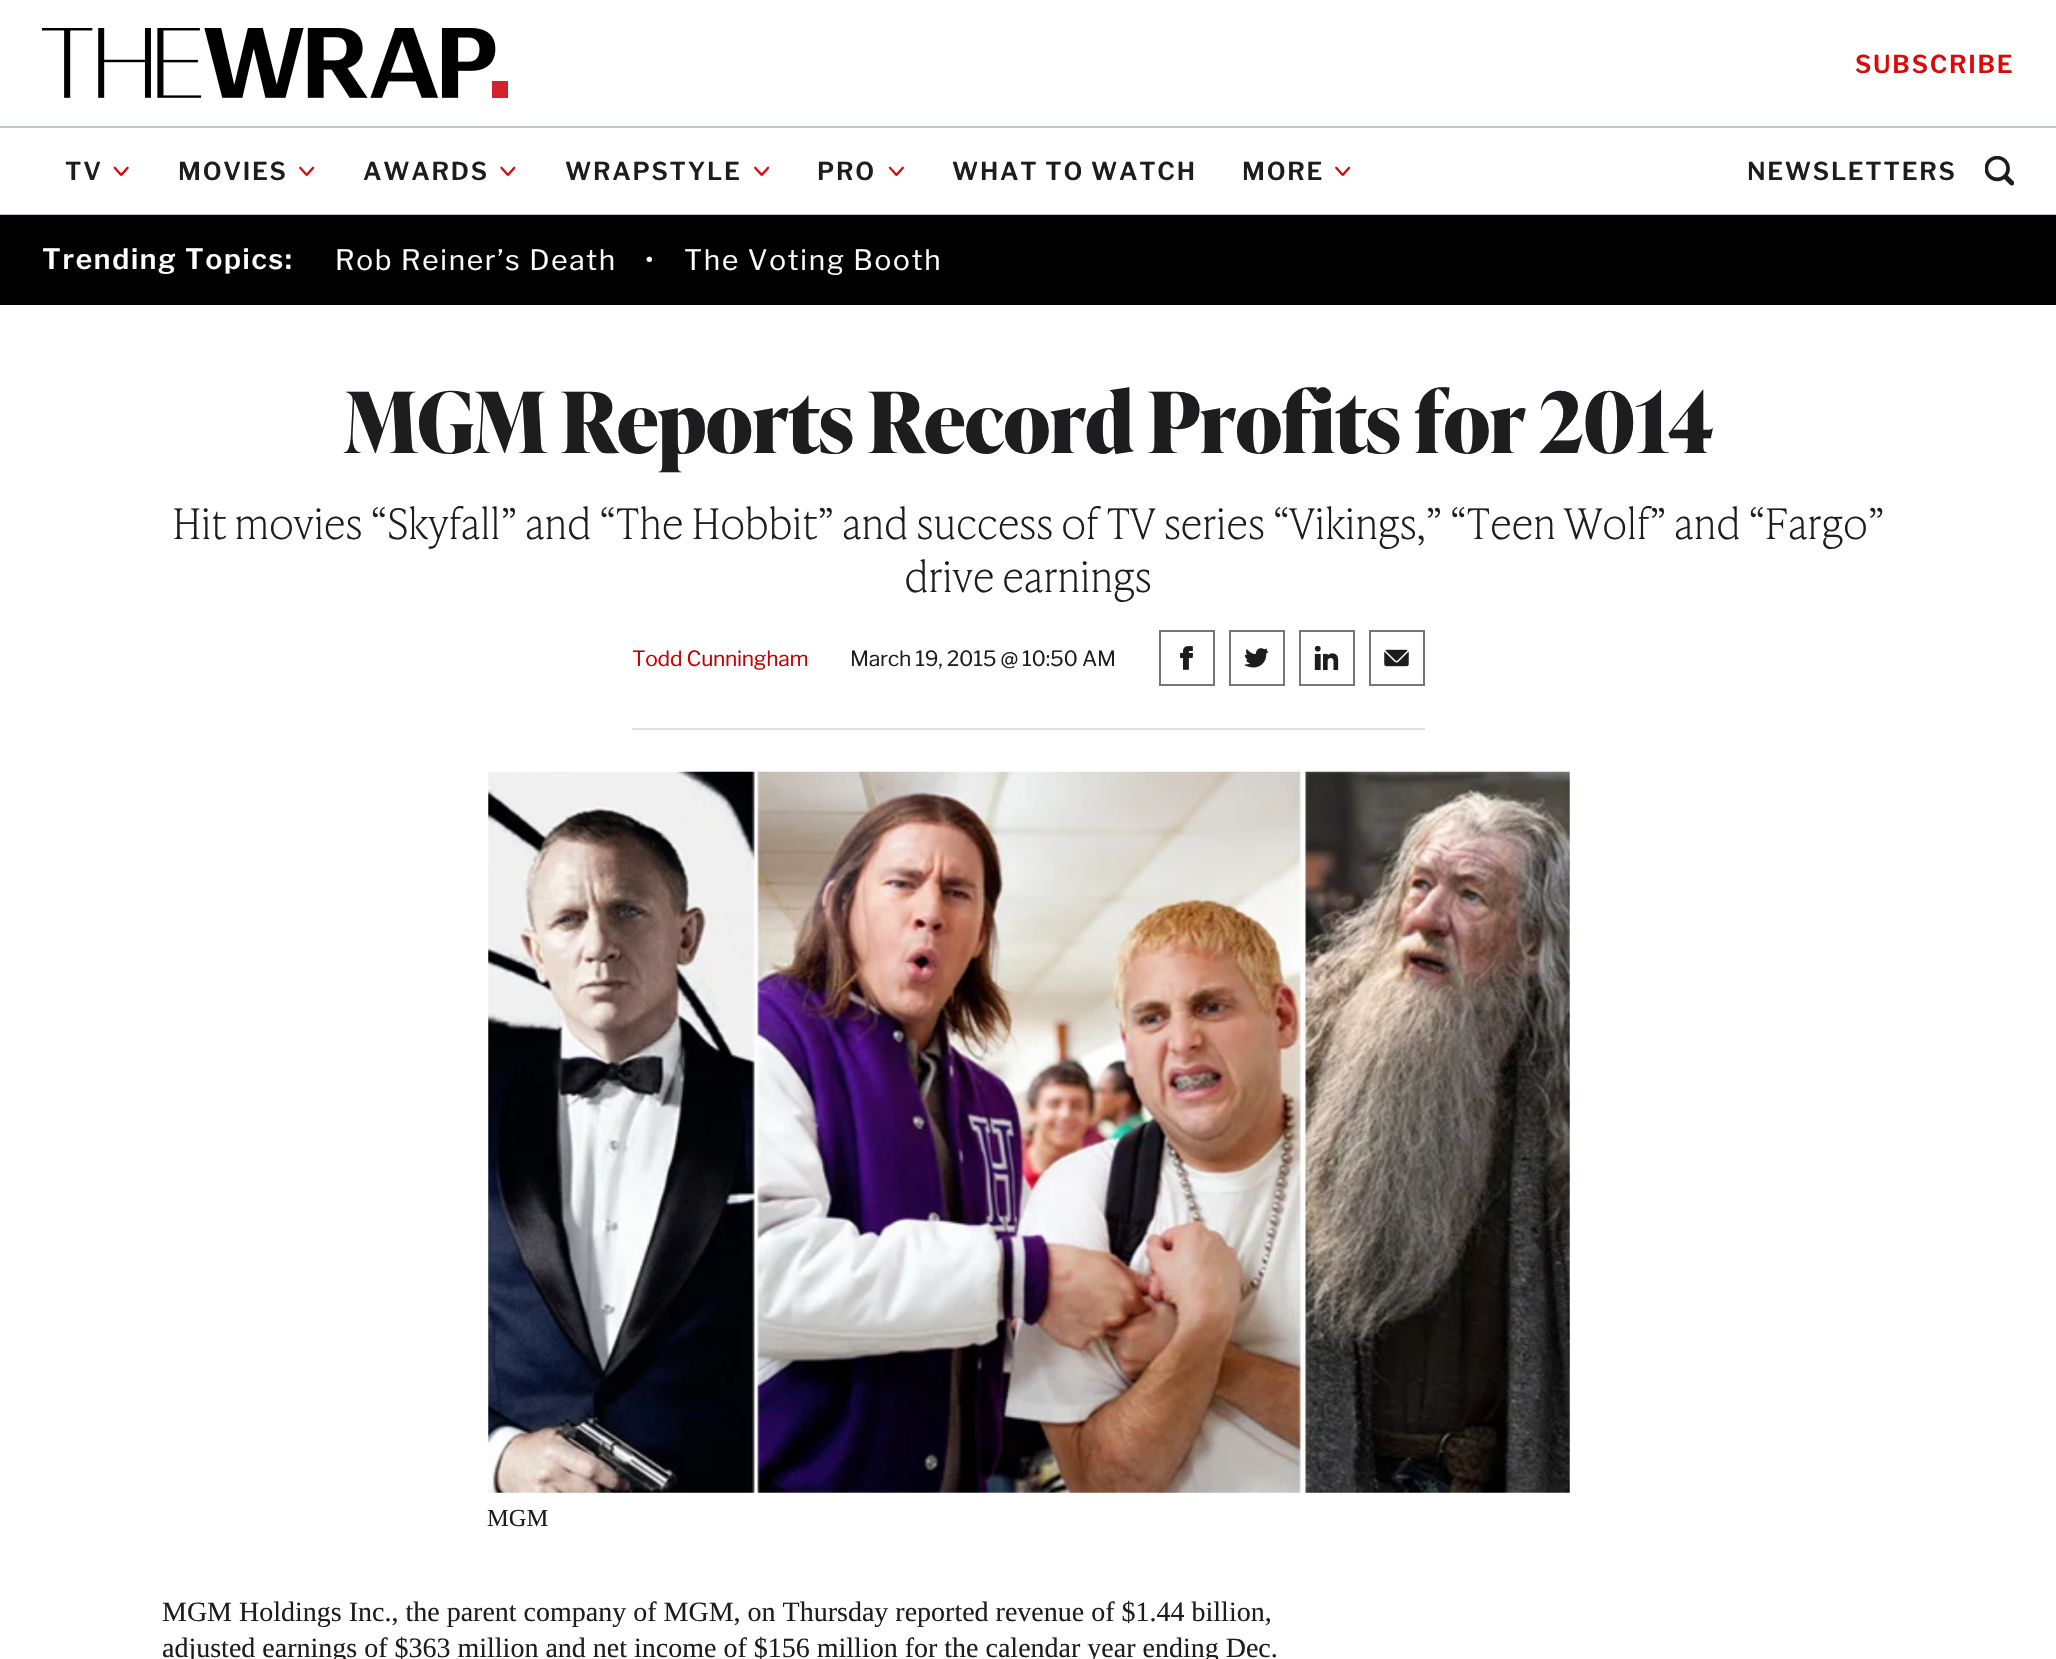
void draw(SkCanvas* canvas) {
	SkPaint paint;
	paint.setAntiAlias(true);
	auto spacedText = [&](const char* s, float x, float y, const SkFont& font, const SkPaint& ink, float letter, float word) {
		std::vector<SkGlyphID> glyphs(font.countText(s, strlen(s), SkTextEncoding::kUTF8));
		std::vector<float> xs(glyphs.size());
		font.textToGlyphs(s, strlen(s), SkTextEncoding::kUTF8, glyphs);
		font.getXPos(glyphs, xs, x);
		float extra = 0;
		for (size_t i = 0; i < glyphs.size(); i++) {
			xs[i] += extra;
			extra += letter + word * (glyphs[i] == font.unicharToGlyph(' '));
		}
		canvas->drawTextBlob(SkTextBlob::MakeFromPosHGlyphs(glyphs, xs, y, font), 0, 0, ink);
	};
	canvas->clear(0xffffffff);
	paint.setColor(0xffbdc6ce);
	canvas->drawRect(SkRect::MakeXYWH(0, 126, 2056, 2), paint);
	canvas->drawImageRect(SkImages::DeferredFromEncodedData(SkData::MakeFromFileName("img1.png")), SkRect::MakeXYWH(42, 28, 466, 70), SkSamplingOptions());
	SkFont f1(fontMgr->matchFamilyStyle("Libre Franklin", SkFontStyle(600, SkFontStyle::kNormal_Width, SkFontStyle::kUpright_Slant)), 24.5);
	f1.setSubpixel(true);
	paint.setColor(0xffda0a0a);
	spacedText("SUBSCRIBE", 1855, 73, f1, paint, 1.75, 0);
	paint.setColor(0xffbdc6ce);
	canvas->drawRect(SkRect::MakeXYWH(0, 214, 2056, 1), paint);
	paint.setColor(0xff1d1d1f);
	spacedText("TV", 65, 180, f1, paint, 1.75, 0);
	canvas->drawImageRect(SkImages::DeferredFromEncodedData(SkData::MakeFromFileName("img2.png")), SkRect::MakeXYWH(113, 166, 16, 10), SkSamplingOptions());
	spacedText("MOVIES", 178, 180, f1, paint, 1.75, 0);
	canvas->drawImageRect(SkImages::DeferredFromEncodedData(SkData::MakeFromFileName("img3.png")), SkRect::MakeXYWH(299, 166, 16, 10), SkSamplingOptions());
	spacedText("AWARDS", 363, 180, f1, paint, 1.75, 0);
	canvas->drawImageRect(SkImages::DeferredFromEncodedData(SkData::MakeFromFileName("img4.png")), SkRect::MakeXYWH(500, 166, 16, 10), SkSamplingOptions());
	spacedText("WRAPSTYLE", 565, 180, f1, paint, 1.75, 0);
	canvas->drawImageRect(SkImages::DeferredFromEncodedData(SkData::MakeFromFileName("img3.png")), SkRect::MakeXYWH(754, 166, 16, 10), SkSamplingOptions());
	spacedText("PRO", 817, 180, f1, paint, 1.75, 0);
	canvas->drawImageRect(SkImages::DeferredFromEncodedData(SkData::MakeFromFileName("img5.png")), SkRect::MakeXYWH(888, 166, 16, 10), SkSamplingOptions());
	spacedText("WHAT TO WATCH", 952, 180, f1, paint, 1.75, 0);
	spacedText("MORE", 1242, 180, f1, paint, 1.75, 0);
	canvas->drawImageRect(SkImages::DeferredFromEncodedData(SkData::MakeFromFileName("img3.png")), SkRect::MakeXYWH(1335, 166, 16, 10), SkSamplingOptions());
	spacedText("NEWSLETTERS", 1747, 180, f1, paint, 1.75, 0);
	canvas->drawImageRect(SkImages::DeferredFromEncodedData(SkData::MakeFromFileName("img6.png")), SkRect::MakeXYWH(1985, 156, 29, 30), SkSamplingOptions());
	paint.setColor(0xff000000);
	canvas->drawRect(SkRect::MakeXYWH(0, 215, 2056, 90), paint);
	SkFont f2(fontMgr->matchFamilyStyle("Libre Franklin", SkFontStyle(600, SkFontStyle::kNormal_Width, SkFontStyle::kUpright_Slant)), 28);
	f2.setSubpixel(true);
	paint.setColor(0xffffffff);
	spacedText("Trending Topics:", 42, 269, f2, paint, 1.75, 0);
	SkFont f3(fontMgr->matchFamilyStyle("Libre Franklin", SkFontStyle::Normal()), 28);
	f3.setSubpixel(true);
	spacedText("Rob Reiner’s Death", 335, 270, f3, paint, 1.75, 0);
	spacedText("•", 645, 270, f3, paint, 1.75, 0);
	spacedText("The Voting Booth", 684, 270, f3, paint, 1.75, 0);
	SkFont f4(fontMgr->matchFamilyStyle("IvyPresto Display", SkFontStyle::Bold()), 84);
	f4.setSubpixel(true);
	paint.setColor(0xff1d1d1f);
	spacedText("MGM Reports Record Profits for 2014", 344, 453, f4, paint, -0.88, 0);
	SkFont f5(fontMgr->matchFamilyStyle("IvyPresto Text", SkFontStyle(100, SkFontStyle::kNormal_Width, SkFontStyle::kUpright_Slant)), 42);
	f5.setSubpixel(true);
	spacedText("Hit movies “Skyfall” and “The Hobbit” and success of TV series “Vikings,” “Teen Wolf” and “Fargo”", 172, 539, f5, paint, -0.88, 0);
	spacedText("drive earnings", 904, 592, f5, paint, -0.88, 0);
	paint.setColor(0xffdcdfe4);
	canvas->drawRect(SkRect::MakeXYWH(632, 728, 793, 2), paint);
	SkFont f6(fontMgr->matchFamilyStyle("Libre Franklin", SkFontStyle::Normal()), 21);
	f6.setSubpixel(true);
	paint.setColor(0xffc50000);
	spacedText("Todd Cunningham", 632, 666, f6, paint, -0.25, 0);
	paint.setColor(0xff1d1d1f);
	spacedText("March 19, 2015 @ 10:50 AM", 850, 666, f6, paint, -0.25, 0);
	paint.setStroke(true);
	paint.setStrokeWidth(2);
	paint.setColor(0xff767676);
	canvas->drawRect(SkRect::MakeXYWH(1160, 631, 54, 54), paint);
	canvas->drawImageRect(SkImages::DeferredFromEncodedData(SkData::MakeFromFileName("img7.png")), SkRect::MakeXYWH(1180, 646, 14, 24), SkSamplingOptions());
	canvas->drawRect(SkRect::MakeXYWH(1230, 631, 54, 54), paint);
	canvas->drawImageRect(SkImages::DeferredFromEncodedData(SkData::MakeFromFileName("img8.png")), SkRect::MakeXYWH(1244, 648, 25, 20), SkSamplingOptions());
	canvas->drawRect(SkRect::MakeXYWH(1300, 631, 54, 54), paint);
	canvas->drawImageRect(SkImages::DeferredFromEncodedData(SkData::MakeFromFileName("img9.png")), SkRect::MakeXYWH(1314, 646, 25, 24), SkSamplingOptions());
	canvas->drawRect(SkRect::MakeXYWH(1370, 631, 54, 54), paint);
	canvas->drawImageRect(SkImages::DeferredFromEncodedData(SkData::MakeFromFileName("img10.png")), SkRect::MakeXYWH(1384, 649, 25, 18), SkSamplingOptions());
	canvas->drawImageRect(SkImages::DeferredFromEncodedData(SkData::MakeFromFileName("img11.png")), SkRect::MakeXYWH(488, 771, 1082, 722), SkSamplingOptions());
	SkFont f7(fontMgr->matchFamilyStyle("Liberation Serif", SkFontStyle::Normal()), 24.5);
	f7.setSubpixel(true);
	paint.setStroke(false);
	paint.setColor(0xff1d1d1f);
	canvas->drawString("MGM", 487, 1526, f7, paint);
	SkFont f8(fontMgr->matchFamilyStyle("Liberation Serif", SkFontStyle::Normal()), 28);
	f8.setSubpixel(true);
	canvas->drawString("MGM Holdings Inc., the parent company of MGM, on Thursday reported revenue of $1.44 billion,", 162, 1621, f8, paint);
	canvas->drawString("adjusted earnings of $363 million and net income of $156 million for the calendar year ending Dec.", 162, 1657, f8, paint);
}
